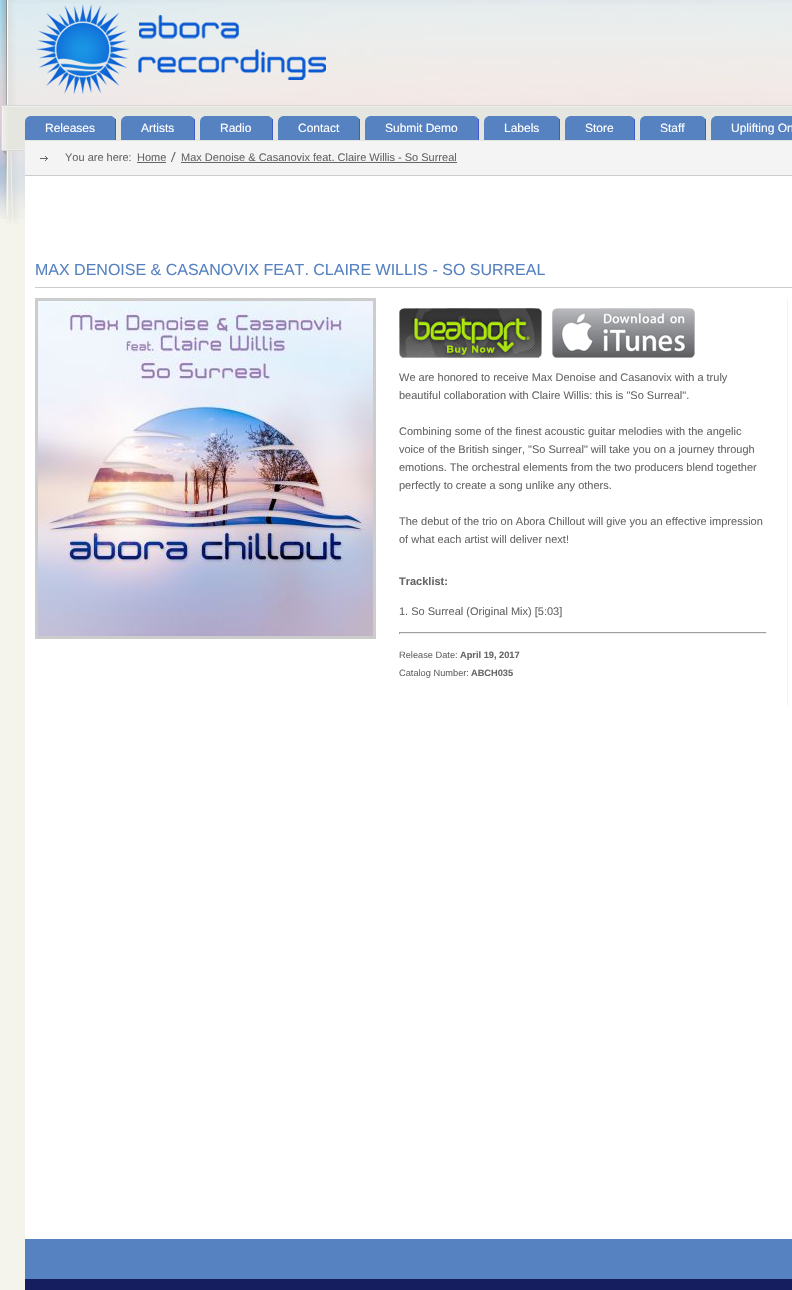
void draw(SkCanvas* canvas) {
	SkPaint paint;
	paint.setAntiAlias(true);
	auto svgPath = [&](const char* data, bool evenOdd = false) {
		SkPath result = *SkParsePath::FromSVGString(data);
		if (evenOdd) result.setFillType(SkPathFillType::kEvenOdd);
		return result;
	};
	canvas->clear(0xfff4f4ed);
	canvas->drawImageRect(SkImages::DeferredFromEncodedData(SkData::MakeFromFileName("img1.png")), SkRect::MakeXYWH(0, 0, 792, 219), SkSamplingOptions());
	canvas->drawImageRect(SkImages::DeferredFromEncodedData(SkData::MakeFromFileName("img2.png")), SkRect::MakeXYWH(1, 0, 791, 224), SkSamplingOptions());
	canvas->drawImageRect(SkImages::DeferredFromEncodedData(SkData::MakeFromFileName("img3.png")), SkRect::MakeXYWH(36, 4, 290, 90), SkSamplingOptions());
	paint.setColor(0xff5682c1);
	canvas->drawPath(svgPath("M31 116H110C113.5 116 116 118.5 116 122V140H25V122C25 118.5 27.5 116 31 116Z"), paint);
	paint.setColor(0xff4059cd);
	canvas->drawRect(SkRect::MakeXYWH(115, 119, 1, 21), paint);
	SkFont f1(fontMgr->matchFamilyStyle("Liberation Sans", SkFontStyle::Normal()), 12);
	f1.setSubpixel(true);
	paint.setColor(0xffffffff);
	canvas->drawString("Releases", 45, 132, f1, paint);
	paint.setColor(0xff5682c1);
	canvas->drawPath(svgPath("M127 116H189C192.5 116 195 118.5 195 122V140H121V122C121 118.5 123.5 116 127 116Z"), paint);
	paint.setColor(0xff4059cd);
	canvas->drawRect(SkRect::MakeXYWH(194, 119, 1, 21), paint);
	paint.setColor(0xffffffff);
	canvas->drawString("Artists", 141, 132, f1, paint);
	paint.setColor(0xff5682c1);
	canvas->drawPath(svgPath("M206 116H267C270.5 116 273 118.5 273 122V140H200V122C200 118.5 202.5 116 206 116Z"), paint);
	paint.setColor(0xff4059cd);
	canvas->drawRect(SkRect::MakeXYWH(272, 119, 1, 21), paint);
	paint.setColor(0xffffffff);
	canvas->drawString("Radio", 220, 132, f1, paint);
	paint.setColor(0xff5682c1);
	canvas->drawPath(svgPath("M284 116H354C357.5 116 360 118.5 360 122V140H278V122C278 118.5 280.5 116 284 116Z"), paint);
	paint.setColor(0xff4059cd);
	canvas->drawRect(SkRect::MakeXYWH(359, 119, 1, 21), paint);
	paint.setColor(0xffffffff);
	canvas->drawString("Contact", 298, 132, f1, paint);
	paint.setColor(0xff5682c1);
	canvas->drawPath(svgPath("M371 116H473C476.5 116 479 118.5 479 122V140H365V122C365 118.5 367.5 116 371 116Z"), paint);
	paint.setColor(0xff4059cd);
	canvas->drawRect(SkRect::MakeXYWH(478, 119, 1, 21), paint);
	paint.setColor(0xffffffff);
	canvas->drawString("Submit Demo", 385, 132, f1, paint);
	paint.setColor(0xff5682c1);
	canvas->drawPath(svgPath("M490 116H554C557.5 116 560 118.5 560 122V140H484V122C484 118.5 486.5 116 490 116Z"), paint);
	paint.setColor(0xff4059cd);
	canvas->drawRect(SkRect::MakeXYWH(559, 119, 1, 21), paint);
	paint.setColor(0xffffffff);
	canvas->drawString("Labels", 504, 132, f1, paint);
	paint.setColor(0xff5682c1);
	canvas->drawPath(svgPath("M571 116H629C632.5 116 635 118.5 635 122V140H565V122C565 118.5 567.5 116 571 116Z"), paint);
	paint.setColor(0xff4059cd);
	canvas->drawRect(SkRect::MakeXYWH(634, 119, 1, 21), paint);
	paint.setColor(0xffffffff);
	canvas->drawString("Store", 585, 132, f1, paint);
	paint.setColor(0xff5682c1);
	canvas->drawPath(svgPath("M646 116H700C703.5 116 706 118.5 706 122V140H640V122C640 118.5 642.5 116 646 116Z"), paint);
	paint.setColor(0xff4059cd);
	canvas->drawRect(SkRect::MakeXYWH(705, 119, 1, 21), paint);
	paint.setColor(0xffffffff);
	canvas->drawString("Staff", 660, 132, f1, paint);
	paint.setColor(0xff5682c1);
	canvas->drawPath(svgPath("M717 116H792C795.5 116 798 118.5 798 122V140H711V122C711 118.5 713.5 116 717 116Z"), paint);
	paint.setColor(0xffffffff);
	canvas->drawString("Uplifting On", 731, 132, f1, paint);
	paint.setColor(0xfff4f4f4);
	canvas->drawRect(SkRect::MakeXYWH(25, 141, 767, 34), paint);
	paint.setColor(0xffcccccc);
	canvas->drawRect(SkRect::MakeXYWH(25, 175, 767, 1), paint);
	canvas->drawImageRect(SkImages::DeferredFromEncodedData(SkData::MakeFromFileName("img4.png")), SkRect::MakeXYWH(40, 156, 8, 5), SkSamplingOptions());
	SkFont f2(fontMgr->matchFamilyStyle("Liberation Sans", SkFontStyle::Normal()), 11);
	f2.setSubpixel(true);
	paint.setColor(0xff666666);
	canvas->drawString("You are here:", 65, 161, f2, paint);
	canvas->drawImageRect(SkImages::DeferredFromEncodedData(SkData::MakeFromFileName("img5.png")), SkRect::MakeXYWH(171, 152, 5, 10), SkSamplingOptions());
	canvas->drawString("Home", 137, 161, f2, paint);
	canvas->drawRect(SkRect::MakeXYWH(137, 162, 29, 1), paint);
	canvas->drawString("Max Denoise & Casanovix feat. Claire Willis - So Surreal", 181, 161, f2, paint);
	canvas->drawRect(SkRect::MakeXYWH(181, 162, 276, 1), paint);
	paint.setColor(0xffffffff);
	canvas->drawRect(SkRect::MakeXYWH(25, 176, 767, 1063), paint);
	paint.setColor(0xffcccccc);
	canvas->drawRect(SkRect::MakeXYWH(35, 287, 757, 1), paint);
	SkFont f3(fontMgr->matchFamilyStyle("Liberation Sans", SkFontStyle::Normal()), 16);
	f3.setSubpixel(true);
	paint.setColor(0xff5682c1);
	canvas->drawString("MAX DENOISE & CASANOVIX FEAT. CLAIRE WILLIS - SO SURREAL", 35, 275, f3, paint);
	paint.setColor(0xfff4f4f4);
	canvas->drawRect(SkRect::MakeXYWH(787, 298, 1, 408), paint);
	paint.setStroke(true);
	paint.setStrokeWidth(3);
	paint.setColor(0xffcccccc);
	canvas->drawRect(SkRect::MakeXYWH(36.5, 299.5, 338, 338), paint);
	canvas->drawImageRect(SkImages::DeferredFromEncodedData(SkData::MakeFromFileName("img6.png")), SkRect::MakeXYWH(38, 301, 335, 335), SkSamplingOptions());
	canvas->drawImageRect(SkImages::DeferredFromEncodedData(SkData::MakeFromFileName("img7.png")), SkRect::MakeXYWH(399, 308, 143, 50), SkSamplingOptions());
	canvas->drawImageRect(SkImages::DeferredFromEncodedData(SkData::MakeFromFileName("img8.png")), SkRect::MakeXYWH(552, 308, 143, 50), SkSamplingOptions());
	paint.setStroke(false);
	paint.setColor(0xff666666);
	canvas->drawString("We are honored to receive Max Denoise and Casanovix with a truly", 399, 381, f2, paint);
	canvas->drawString("beautiful collaboration with Claire Willis: this is \"So Surreal\".", 399, 399, f2, paint);
	canvas->drawString("Combining some of the finest acoustic guitar melodies with the angelic", 399, 435, f2, paint);
	canvas->drawString("voice of the British singer, \"So Surreal\" will take you on a journey through", 399, 453, f2, paint);
	canvas->drawString("emotions. The orchestral elements from the two producers blend together", 399, 471, f2, paint);
	canvas->drawString("perfectly to create a song unlike any others.", 399, 489, f2, paint);
	canvas->drawString("The debut of the trio on Abora Chillout will give you an effective impression", 399, 525, f2, paint);
	canvas->drawString("of what each artist will deliver next!", 399, 543, f2, paint);
	SkFont f4(fontMgr->matchFamilyStyle("Liberation Sans", SkFontStyle::Bold()), 11);
	f4.setSubpixel(true);
	canvas->drawString("Tracklist:", 399, 585, f4, paint);
	canvas->drawString("1. So Surreal (Original Mix) [5:03]", 399, 615, f2, paint);
	paint.setColor(0xff9f9f9f);
	canvas->drawRect(SkRect::MakeXYWH(399, 632, 368, 1), paint);
	paint.setColor(0xffeeeeee);
	canvas->drawRect(SkRect::MakeXYWH(766, 632, 1, 2), paint);
	canvas->drawRect(SkRect::MakeXYWH(399, 633, 368, 1), paint);
	paint.setColor(0xff9f9f9f);
	canvas->drawRect(SkRect::MakeXYWH(399, 632, 1, 2), paint);
	SkFont f5(fontMgr->matchFamilyStyle("Liberation Sans", SkFontStyle::Normal()), 9.25);
	f5.setSubpixel(true);
	paint.setColor(0xff666666);
	canvas->drawString("Release Date:", 399, 658, f5, paint);
	SkFont f6(fontMgr->matchFamilyStyle("Liberation Sans", SkFontStyle::Bold()), 9.25);
	f6.setSubpixel(true);
	canvas->drawString("April 19, 2017", 460, 658, f6, paint);
	canvas->drawString("Catalog Number:", 399, 676, f5, paint);
	canvas->drawString("ABCH035", 471, 676, f6, paint);
	paint.setColor(0xff5682c1);
	canvas->drawRect(SkRect::MakeXYWH(25, 1239, 767, 40), paint);
	paint.setColor(0xff151f5f);
	canvas->drawRect(SkRect::MakeXYWH(25, 1279, 767, 11), paint);
}
